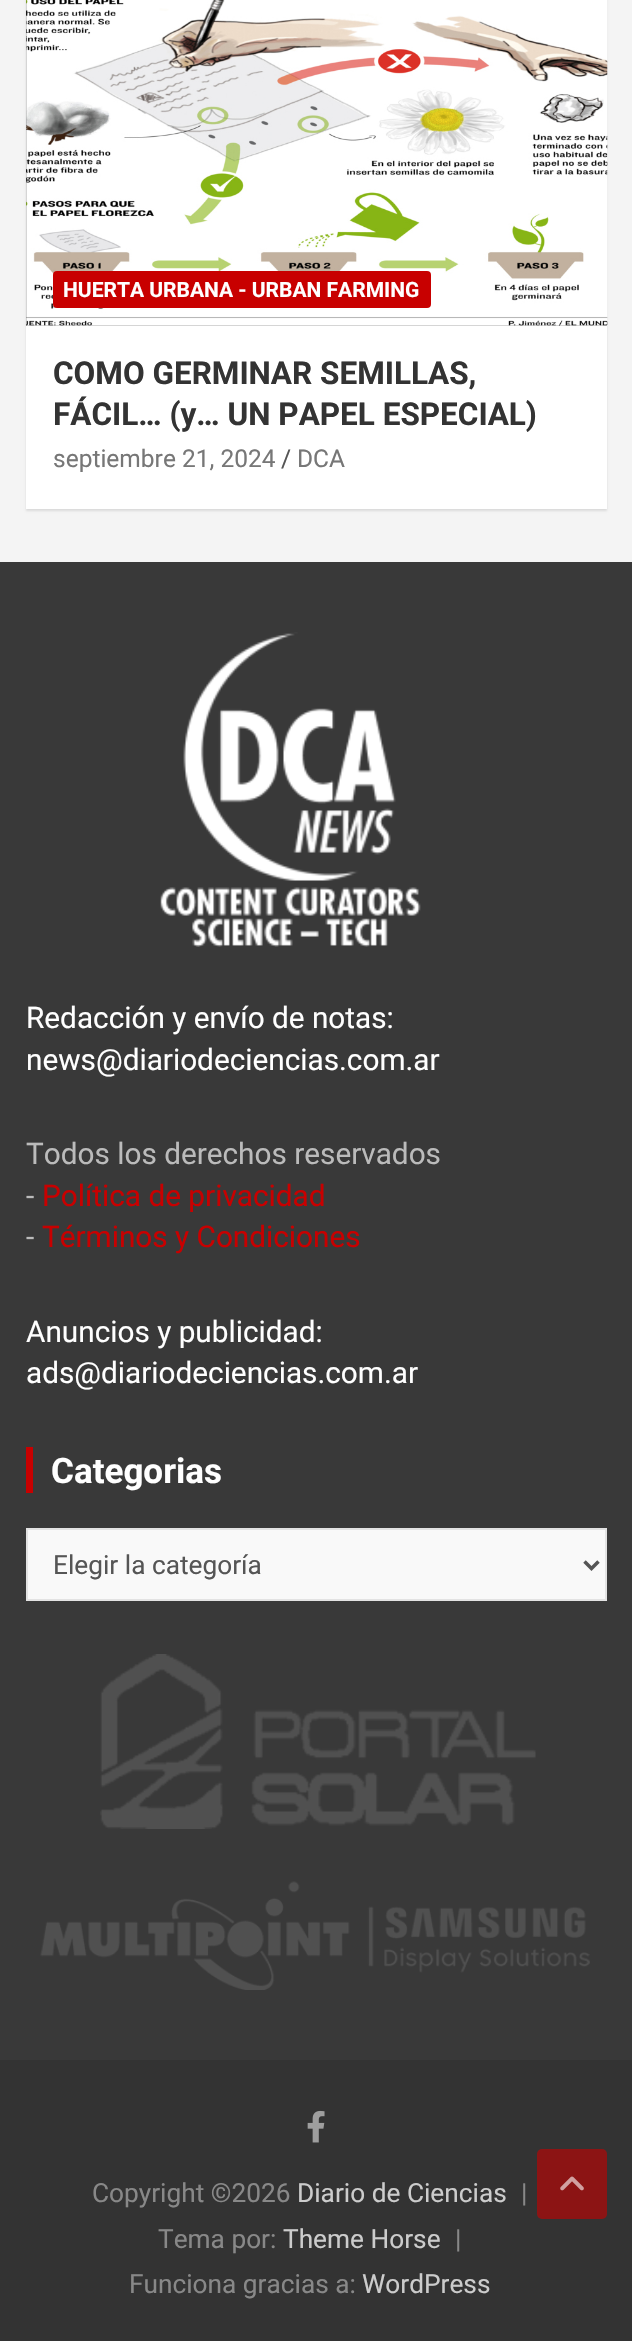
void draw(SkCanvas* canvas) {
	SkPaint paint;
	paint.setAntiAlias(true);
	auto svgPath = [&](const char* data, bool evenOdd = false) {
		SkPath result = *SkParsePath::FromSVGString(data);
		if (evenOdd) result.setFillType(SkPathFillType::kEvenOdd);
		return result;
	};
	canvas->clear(0xfff4f4f4);
	paint.setColor(0x1a000000);
	paint.setMaskFilter(SkMaskFilter::MakeBlur(kNormal_SkBlurStyle, 1));
	canvas->drawRect(SkRect::MakeXYWH(26, -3, 581, 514), paint);
	paint.setMaskFilter(nullptr);
	paint.setColor(0xffffffff);
	canvas->drawRect(SkRect::MakeXYWH(26, 326, 581, 183), paint);
	paint.setColor(0xff555555);
	canvas->drawRect(SkRect::MakeXYWH(26, 0, 581, 326), paint);
	canvas->drawImageRect(SkImages::DeferredFromEncodedData(SkData::MakeFromFileName("img1.png")), SkRect::MakeXYWH(26, 0, 582, 326), SkSamplingOptions());
	paint.setColor(0xffc80000);
	canvas->drawRoundRect(SkRect::MakeXYWH(53, 271, 378, 37), 4, 4, paint);
	SkFont f1(fontMgr->matchFamilyStyle("Roboto", SkFontStyle::Bold()), 21);
	f1.setSubpixel(true);
	paint.setColor(0xffffffff);
	canvas->drawString("HUERTA URBANA - URBAN FARMING", 63, 297, f1, paint);
	SkFont f2(fontMgr->matchFamilyStyle("Roboto", SkFontStyle::Bold()), 31.5);
	f2.setSubpixel(true);
	paint.setColor(0xff333333);
	canvas->drawString("COMO GERMINAR SEMILLAS,", 53, 384, f2, paint);
	canvas->drawString("FÁCIL… (y… UN PAPEL ESPECIAL)", 53, 425, f2, paint);
	SkFont f3(fontMgr->matchFamilyStyle("Roboto", SkFontStyle::Normal()), 24.5);
	f3.setSubpixel(true);
	paint.setColor(0xff777777);
	canvas->drawString("septiembre 21, 2024", 53, 467, f3, paint);
	paint.setColor(0xff555555);
	canvas->drawString("/", 281, 467, f3, paint);
	paint.setColor(0xff777777);
	canvas->drawString("DCA", 297, 467, f3, paint);
	paint.setColor(0xff393939);
	canvas->drawRect(SkRect::MakeXYWH(0, 562, 632, 1498), paint);
	canvas->drawImageRect(SkImages::DeferredFromEncodedData(SkData::MakeFromFileName("img2.png")), SkRect::MakeXYWH(160, 632, 261, 315), SkSamplingOptions());
	SkFont f4(fontMgr->matchFamilyStyle("Roboto", SkFontStyle::Normal()), 29.75);
	f4.setSubpixel(true);
	paint.setColor(0xffffffff);
	canvas->drawString("Redacción y envío de notas:", 26, 1028, f4, paint);
	canvas->drawString("news@diariodeciencias.com.ar", 26, 1070, f4, paint);
	paint.setColor(0xffbbbbbb);
	canvas->drawString("Todos los derechos reservados", 26, 1164, f4, paint);
	canvas->drawString("-", 26, 1206, f4, paint);
	paint.setColor(0xffc80000);
	canvas->drawString("Política de privacidad", 42, 1206, f4, paint);
	paint.setColor(0xffbbbbbb);
	canvas->drawString("-", 26, 1247, f4, paint);
	paint.setColor(0xffc80000);
	canvas->drawString("Términos y Condiciones", 42, 1247, f4, paint);
	paint.setColor(0xffffffff);
	canvas->drawString("Anuncios y publicidad:", 26, 1342, f4, paint);
	canvas->drawString("ads@diariodeciencias.com.ar", 26, 1383, f4, paint);
	paint.setColor(0xffc80000);
	canvas->drawRect(SkRect::MakeXYWH(26, 1447, 7, 46), paint);
	SkFont f5(fontMgr->matchFamilyStyle("Roboto", SkFontStyle::Bold()), 35);
	f5.setSubpixel(true);
	paint.setColor(0xffffffff);
	canvas->drawString("Categorias", 51, 1483, f5, paint);
	paint.setColor(0xfff9f9f9);
	canvas->drawRect(SkRect::MakeXYWH(27, 1529, 579, 71), paint);
	paint.setStroke(true);
	paint.setStrokeWidth(2);
	paint.setColor(0xffe3e3e3);
	canvas->drawRect(SkRect::MakeXYWH(27, 1529, 579, 71), paint);
	paint.setStrokeWidth(3.5);
	paint.setColor(0xff555555);
	canvas->drawPath(svgPath("M584.5 1561.5L591.5 1568.5L598.5 1561.5"), paint);
	SkFont f6(fontMgr->matchFamilyStyle("Roboto", SkFontStyle::Normal()), 26.25);
	f6.setSubpixel(true);
	paint.setStroke(false);
	canvas->drawString("Elegir la categoría", 53, 1574, f6, paint);
	canvas->drawImageRect(SkImages::DeferredFromEncodedData(SkData::MakeFromFileName("img3.png")), SkRect::MakeXYWH(100, 1654, 436, 175), SkSamplingOptions());
	canvas->drawImageRect(SkImages::DeferredFromEncodedData(SkData::MakeFromFileName("img4.png")), SkRect::MakeXYWH(40, 1881, 550, 109), SkSamplingOptions());
	paint.setColor(0xff333333);
	canvas->drawRect(SkRect::MakeXYWH(0, 2060, 632, 281), paint);
	canvas->drawImageRect(SkImages::DeferredFromEncodedData(SkData::MakeFromFileName("img5.png")), SkRect::MakeXYWH(307, 2110, 18, 33), SkSamplingOptions());
	paint.setColor(0xff888888);
	canvas->drawString("Copyright ©2026", 92, 2202, f6, paint);
	paint.setColor(0xffcccccc);
	canvas->drawString("Diario de Ciencias", 297, 2202, f6, paint);
	paint.setColor(0xff888888);
	canvas->drawString("|", 521, 2202, f6, paint);
	canvas->drawString("Tema por:", 158, 2248, f6, paint);
	paint.setColor(0xffcccccc);
	canvas->drawString("Theme Horse", 283, 2248, f6, paint);
	paint.setColor(0xff888888);
	canvas->drawString("|", 455, 2248, f6, paint);
	canvas->drawString("Funciona gracias a:", 129, 2293, f6, paint);
	paint.setColor(0xffcccccc);
	canvas->drawString("WordPress", 362, 2293, f6, paint);
	paint.setColor(0xff8c1414);
	canvas->drawRoundRect(SkRect::MakeXYWH(537, 2149, 70, 70), 5, 5, paint);
	canvas->drawImageRect(SkImages::DeferredFromEncodedData(SkData::MakeFromFileName("img6.png")), SkRect::MakeXYWH(560, 2176, 24, 15), SkSamplingOptions());
}
